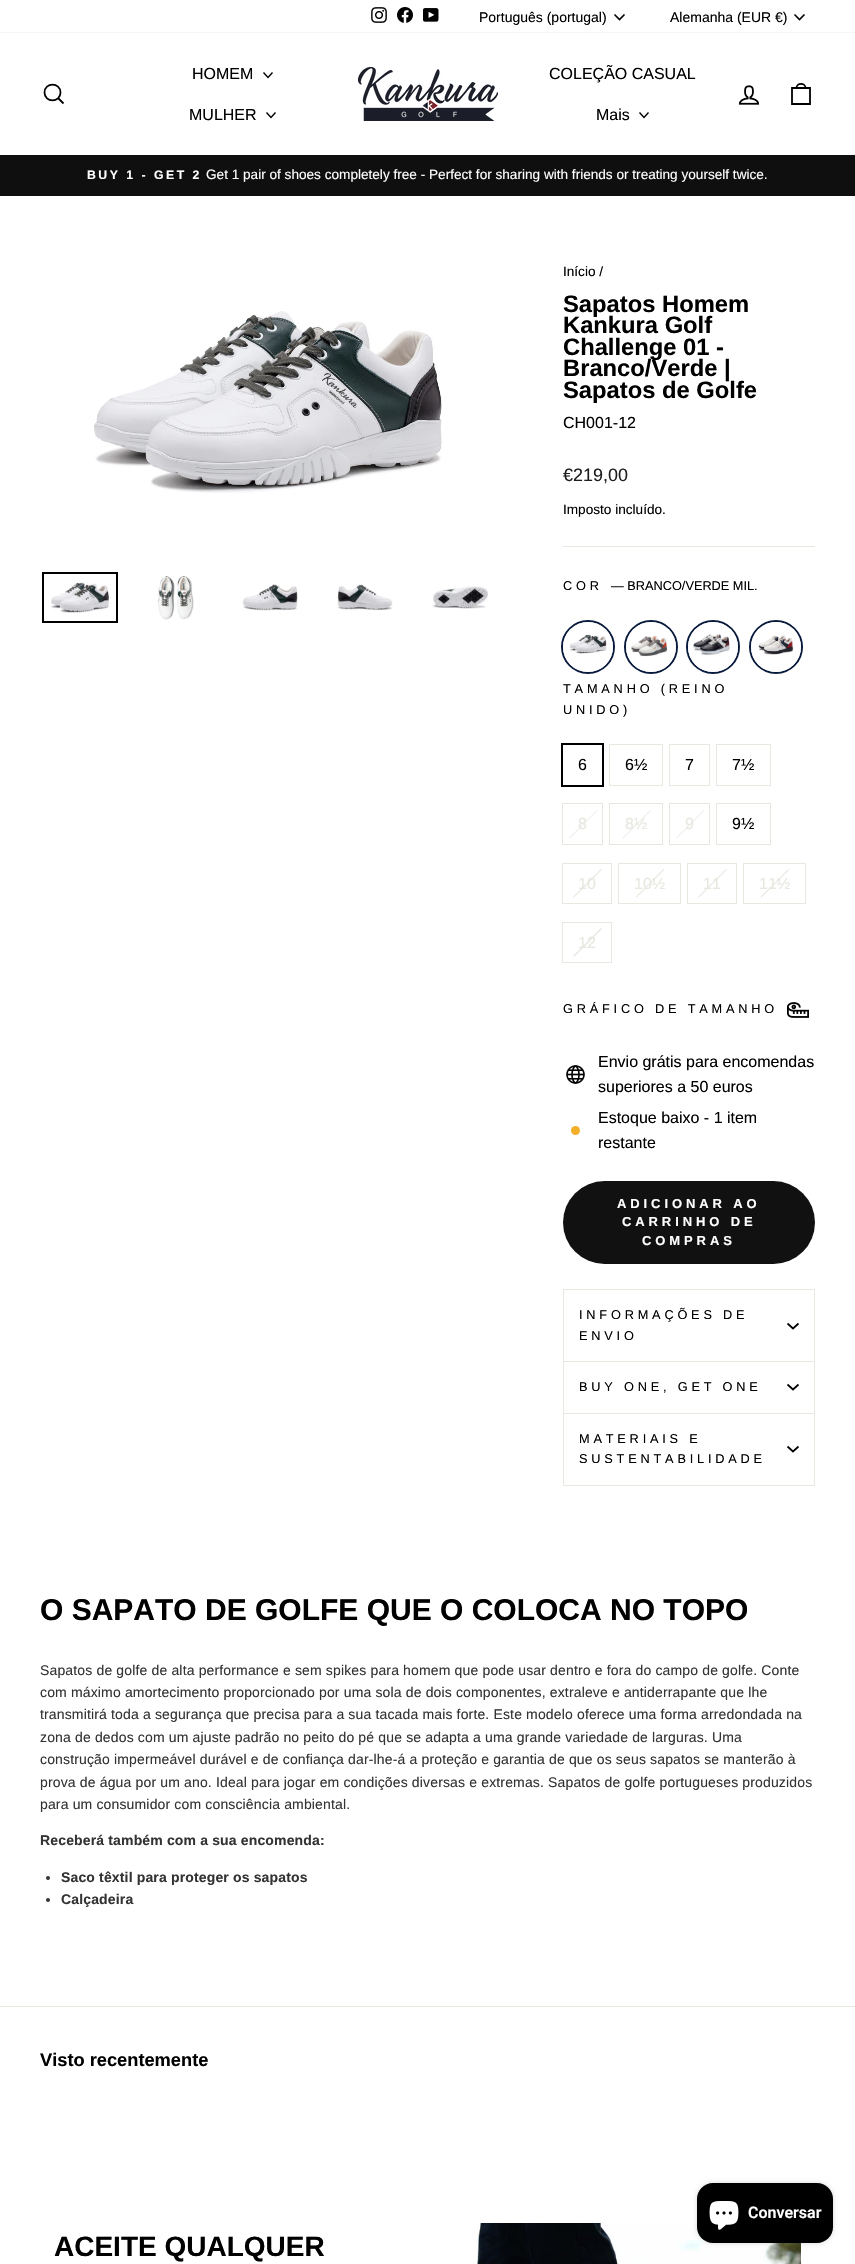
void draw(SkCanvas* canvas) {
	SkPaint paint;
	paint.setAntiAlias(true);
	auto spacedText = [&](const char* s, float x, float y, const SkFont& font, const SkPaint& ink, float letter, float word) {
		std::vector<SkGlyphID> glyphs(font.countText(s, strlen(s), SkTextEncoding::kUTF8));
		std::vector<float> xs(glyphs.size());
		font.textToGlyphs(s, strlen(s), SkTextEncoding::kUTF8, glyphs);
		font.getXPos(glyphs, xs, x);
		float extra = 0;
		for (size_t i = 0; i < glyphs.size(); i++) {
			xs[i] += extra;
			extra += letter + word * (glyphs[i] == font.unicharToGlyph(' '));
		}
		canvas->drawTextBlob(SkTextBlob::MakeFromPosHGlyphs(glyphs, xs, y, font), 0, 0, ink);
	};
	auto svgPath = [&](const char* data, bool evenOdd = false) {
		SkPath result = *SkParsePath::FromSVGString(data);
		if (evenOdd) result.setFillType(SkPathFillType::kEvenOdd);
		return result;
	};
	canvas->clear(0xffffffff);
	canvas->drawImageRect(SkImages::DeferredFromEncodedData(SkData::MakeFromFileName("img1.png")), SkRect::MakeXYWH(371, 7, 16, 16), SkSamplingOptions());
	canvas->drawImageRect(SkImages::DeferredFromEncodedData(SkData::MakeFromFileName("img2.png")), SkRect::MakeXYWH(397, 7, 16, 16), SkSamplingOptions());
	canvas->drawImageRect(SkImages::DeferredFromEncodedData(SkData::MakeFromFileName("img3.png")), SkRect::MakeXYWH(423, 8, 16, 14), SkSamplingOptions());
	SkFont f1(fontMgr->matchFamilyStyle("Liberation Sans", SkFontStyle::Normal()), 14);
	f1.setSubpixel(true);
	paint.setColor(0xff000000);
	canvas->drawString("Português (portugal)", 479, 22, f1, paint);
	paint.setStroke(true);
	paint.setStrokeWidth(1.6);
	canvas->drawPath(svgPath("M614.5 14.5L619.5 19.5L624.5 14.5"), paint);
	paint.setStroke(false);
	canvas->drawString("Alemanha (EUR €)", 670, 22, f1, paint);
	paint.setStroke(true);
	canvas->drawPath(svgPath("M794.5 14.5L799.5 19.5L804.5 14.5"), paint);
	paint.setStroke(false);
	paint.setColor(0xff0f0f0f);
	canvas->drawRect(SkRect::MakeXYWH(0, 155, 855, 41), paint);
	paint.setColor(0x33000000);
	paint.setMaskFilter(SkMaskFilter::MakeBlur(kNormal_SkBlurStyle, 0.5));
	canvas->drawRect(SkRect::MakeXYWH(0, 33, 855, 122), paint);
	paint.setMaskFilter(nullptr);
	paint.setColor(0xffffffff);
	canvas->drawRect(SkRect::MakeXYWH(0, 33, 855, 122), paint);
	paint.setStroke(true);
	paint.setStrokeWidth(1.8);
	paint.setColor(0xff000000);
	canvas->drawPath(svgPath("M60.5 92.5C60.5 103 44.5 103 44.5 92.5C44.5 82 60.5 82 60.5 92.5ZM63.5 103.5L58.5 98.5"), paint);
	SkFont f2(fontMgr->matchFamilyStyle("Liberation Sans", SkFontStyle::Normal()), 16);
	f2.setSubpixel(true);
	paint.setStroke(false);
	canvas->drawString("HOMEM", 192, 79, f2, paint);
	paint.setStroke(true);
	paint.setStrokeWidth(1.4);
	canvas->drawPath(svgPath("M263.5 72.5L268 77.5L272.5 72.5"), paint);
	paint.setStroke(false);
	canvas->drawString("MULHER", 189, 120, f2, paint);
	paint.setStroke(true);
	canvas->drawPath(svgPath("M266.5 112.5L271 117.5L275.5 112.5"), paint);
	canvas->drawImageRect(SkImages::DeferredFromEncodedData(SkData::MakeFromFileName("img4.png")), SkRect::MakeXYWH(358, 67, 140, 54), SkSamplingOptions());
	paint.setStroke(false);
	canvas->drawString("COLEÇÃO CASUAL", 549, 79, f2, paint);
	canvas->drawString("Mais", 596, 120, f2, paint);
	paint.setStroke(true);
	canvas->drawPath(svgPath("M639.5 112.5L644 117.5L648.5 112.5"), paint);
	canvas->drawImageRect(SkImages::DeferredFromEncodedData(SkData::MakeFromFileName("img5.png")), SkRect::MakeXYWH(738, 85, 22, 20), SkSamplingOptions());
	paint.setStrokeWidth(1.8);
	canvas->drawPath(svgPath("M792 88H810V104H792ZM796.5 88C796.5 82.5 805.5 82.5 805.5 88"), paint);
	SkFont f3(fontMgr->matchFamilyStyle("Liberation Sans", SkFontStyle::Bold()), 12.25);
	f3.setSubpixel(true);
	paint.setStroke(false);
	paint.setColor(0xffffffff);
	spacedText("BUY 1 - GET 2", 87, 179, f3, paint, 2.5, 0);
	SkFont f4(fontMgr->matchFamilyStyle("Liberation Sans", SkFontStyle::Normal()), 13.6);
	f4.setSubpixel(true);
	canvas->drawString("Get 1 pair of shoes completely free - Perfect for sharing with friends or treating yourself twice.", 206, 179, f4, paint);
	canvas->drawImageRect(SkImages::DeferredFromEncodedData(SkData::MakeFromFileName("img6.png")), SkRect::MakeXYWH(94, 311, 348, 182), SkSamplingOptions());
	canvas->drawImageRect(SkImages::DeferredFromEncodedData(SkData::MakeFromFileName("img7.png")), SkRect::MakeXYWH(51, 582, 59, 31), SkSamplingOptions());
	paint.setStroke(true);
	paint.setStrokeWidth(2);
	paint.setColor(0xff000000);
	canvas->drawRect(SkRect::MakeXYWH(43, 573, 74, 49), paint);
	canvas->drawImageRect(SkImages::DeferredFromEncodedData(SkData::MakeFromFileName("img8.png")), SkRect::MakeXYWH(157, 576, 37, 44), SkSamplingOptions());
	canvas->drawImageRect(SkImages::DeferredFromEncodedData(SkData::MakeFromFileName("img9.png")), SkRect::MakeXYWH(242, 584, 56, 27), SkSamplingOptions());
	canvas->drawImageRect(SkImages::DeferredFromEncodedData(SkData::MakeFromFileName("img10.png")), SkRect::MakeXYWH(337, 584, 56, 27), SkSamplingOptions());
	canvas->drawImageRect(SkImages::DeferredFromEncodedData(SkData::MakeFromFileName("img11.png")), SkRect::MakeXYWH(432, 586, 56, 23), SkSamplingOptions());
	paint.setStroke(false);
	canvas->drawString("Início /", 563, 276, f4, paint);
	SkFont f5(fontMgr->matchFamilyStyle("Liberation Sans", SkFontStyle::Bold()), 23.75);
	f5.setSubpixel(true);
	canvas->drawString("Sapatos Homem", 563, 312, f5, paint);
	canvas->drawString("Kankura Golf", 563, 333, f5, paint);
	canvas->drawString("Challenge 01 -", 563, 355, f5, paint);
	canvas->drawString("Branco/Verde |", 563, 376, f5, paint);
	canvas->drawString("Sapatos de Golfe", 563, 398, f5, paint);
	canvas->drawString("CH001-12", 563, 428, f2, paint);
	SkFont f6(fontMgr->matchFamilyStyle("Liberation Sans", SkFontStyle::Normal()), 18);
	f6.setSubpixel(true);
	paint.setColor(0xff1c1d1d);
	canvas->drawString("€219,00", 563, 481, f6, paint);
	paint.setColor(0xff000000);
	canvas->drawString("Imposto incluído.", 563, 514, f4, paint);
	paint.setColor(0xffe8e8e1);
	canvas->drawRect(SkRect::MakeXYWH(563, 546, 252, 1), paint);
	SkFont f7(fontMgr->matchFamilyStyle("Liberation Sans", SkFontStyle::Normal()), 12.75);
	f7.setSubpixel(true);
	paint.setColor(0xff000000);
	spacedText("COR", 563, 590, f7, paint, 3.8, 0);
	canvas->drawString("— BRANCO/VERDE MIL.", 611, 590, f7, paint);
	paint.setStroke(true);
	paint.setColor(0xff091b3d);
	canvas->drawCircle(588, 647, 26, paint);
	paint.setStroke(false);
	paint.setColor(0xffffffff);
	canvas->drawCircle(588, 647, 25, paint);
	canvas->drawImageRect(SkImages::DeferredFromEncodedData(SkData::MakeFromFileName("img12.png")), SkRect::MakeXYWH(569, 634, 38, 20), SkSamplingOptions());
	paint.setStroke(true);
	paint.setColor(0xff091b3d);
	canvas->drawCircle(651, 647, 26, paint);
	paint.setStroke(false);
	paint.setColor(0xffffffff);
	canvas->drawCircle(651, 647, 25, paint);
	canvas->drawImageRect(SkImages::DeferredFromEncodedData(SkData::MakeFromFileName("img13.png")), SkRect::MakeXYWH(631, 635, 37, 22), SkSamplingOptions());
	paint.setStroke(true);
	paint.setColor(0xff091b3d);
	canvas->drawCircle(713, 647, 26, paint);
	paint.setStroke(false);
	paint.setColor(0xffffffff);
	canvas->drawCircle(713, 647, 25, paint);
	canvas->drawImageRect(SkImages::DeferredFromEncodedData(SkData::MakeFromFileName("img14.png")), SkRect::MakeXYWH(693, 634, 37, 22), SkSamplingOptions());
	paint.setStroke(true);
	paint.setColor(0xff091b3d);
	canvas->drawCircle(776, 647, 26, paint);
	paint.setStroke(false);
	paint.setColor(0xffffffff);
	canvas->drawCircle(776, 647, 25, paint);
	canvas->drawImageRect(SkImages::DeferredFromEncodedData(SkData::MakeFromFileName("img15.png")), SkRect::MakeXYWH(758, 635, 36, 20), SkSamplingOptions());
	paint.setColor(0xff000000);
	spacedText("TAMANHO (REINO", 563, 693, f7, paint, 3.8, 0);
	spacedText("UNIDO)", 563, 714, f7, paint, 3.8, 0);
	paint.setStroke(true);
	canvas->drawRect(SkRect::MakeXYWH(562, 744, 41, 42), paint);
	paint.setStroke(false);
	canvas->drawString("6", 578, 770, f2, paint);
	paint.setStroke(true);
	paint.setStrokeWidth(1);
	paint.setColor(0xffe8e8e1);
	canvas->drawRect(SkRect::MakeXYWH(609.5, 744.5, 53, 41), paint);
	paint.setStroke(false);
	paint.setColor(0xff000000);
	canvas->drawString("6½", 625, 770, f2, paint);
	paint.setStroke(true);
	paint.setColor(0xffe8e8e1);
	canvas->drawRect(SkRect::MakeXYWH(669.5, 744.5, 40, 41), paint);
	paint.setStroke(false);
	paint.setColor(0xff000000);
	canvas->drawString("7", 685, 770, f2, paint);
	paint.setStroke(true);
	paint.setColor(0xffe8e8e1);
	canvas->drawRect(SkRect::MakeXYWH(716.5, 744.5, 54, 41), paint);
	paint.setStroke(false);
	paint.setColor(0xff000000);
	canvas->drawString("7½", 732, 770, f2, paint);
	paint.setStroke(true);
	paint.setColor(0xffe8e8e1);
	canvas->drawRect(SkRect::MakeXYWH(562.5, 803.5, 40, 41), paint);
	paint.setStroke(false);
	canvas->drawPath(svgPath("M597 810L597.5 810.5L569.5 838.5L569 838Z"), paint);
	canvas->drawString("8", 578, 829, f2, paint);
	paint.setStroke(true);
	canvas->drawRect(SkRect::MakeXYWH(609.5, 803.5, 53, 41), paint);
	paint.setStroke(false);
	canvas->drawPath(svgPath("M650.5 810L651 810.5L623 838.5L622.5 838Z"), paint);
	canvas->drawString("8½", 625, 829, f2, paint);
	paint.setStroke(true);
	canvas->drawRect(SkRect::MakeXYWH(669.5, 803.5, 40, 41), paint);
	paint.setStroke(false);
	canvas->drawPath(svgPath("M704 810L704.5 810.5L676.5 838.5L676 838Z"), paint);
	canvas->drawString("9", 685, 829, f2, paint);
	paint.setStroke(true);
	canvas->drawRect(SkRect::MakeXYWH(716.5, 803.5, 54, 41), paint);
	paint.setStroke(false);
	paint.setColor(0xff000000);
	canvas->drawString("9½", 732, 829, f2, paint);
	paint.setStroke(true);
	paint.setColor(0xffe8e8e1);
	canvas->drawRect(SkRect::MakeXYWH(562.5, 863.5, 49, 40), paint);
	paint.setStroke(false);
	canvas->drawPath(svgPath("M601 869L602 869.5L574 897.5L573 897Z"), paint);
	canvas->drawString("10", 578, 889, f2, paint);
	paint.setStroke(true);
	canvas->drawRect(SkRect::MakeXYWH(618.5, 863.5, 62, 40), paint);
	paint.setStroke(false);
	canvas->drawPath(svgPath("M663.5 869L664.5 869.5L636.5 897.5L635.5 897Z"), paint);
	canvas->drawString("10½", 634, 889, f2, paint);
	paint.setStroke(true);
	canvas->drawRect(SkRect::MakeXYWH(687.5, 863.5, 49, 40), paint);
	paint.setStroke(false);
	canvas->drawPath(svgPath("M726 869L727 869.5L699 897.5L698 897Z"), paint);
	canvas->drawString("11", 703, 889, f2, paint);
	paint.setStroke(true);
	canvas->drawRect(SkRect::MakeXYWH(743.5, 863.5, 62, 40), paint);
	paint.setStroke(false);
	canvas->drawPath(svgPath("M788.5 869L789.5 869.5L761.5 897.5L760.5 897Z"), paint);
	canvas->drawString("11½", 759, 889, f2, paint);
	paint.setStroke(true);
	canvas->drawRect(SkRect::MakeXYWH(562.5, 922.5, 49, 40), paint);
	paint.setStroke(false);
	canvas->drawPath(svgPath("M601 928L602 929L574 957L573 956Z"), paint);
	canvas->drawString("12", 578, 948, f2, paint);
	paint.setColor(0xff000000);
	spacedText("GRÁFICO DE TAMANHO", 563, 1013, f7, paint, 3.8, 0);
	canvas->drawImageRect(SkImages::DeferredFromEncodedData(SkData::MakeFromFileName("img16.png")), SkRect::MakeXYWH(787, 1002, 22, 16), SkSamplingOptions());
	canvas->drawImageRect(SkImages::DeferredFromEncodedData(SkData::MakeFromFileName("img17.png")), SkRect::MakeXYWH(566, 1065, 19, 19), SkSamplingOptions());
	canvas->drawString("Envio grátis para encomendas", 598, 1067, f2, paint);
	canvas->drawString("superiores a 50 euros", 598, 1092, f2, paint);
	paint.setColor(0xfff4af29);
	canvas->drawCircle(575.5, 1130.5, 4.5, paint);
	paint.setColor(0xff000000);
	canvas->drawString("Estoque baixo - 1 item", 598, 1123, f2, paint);
	canvas->drawString("restante", 598, 1148, f2, paint);
	paint.setColor(0xff111111);
	canvas->drawRoundRect(SkRect::MakeXYWH(563, 1181, 252, 83), 41.5, 41.5, paint);
	SkFont f8(fontMgr->matchFamilyStyle("Liberation Sans", SkFontStyle::Bold()), 13);
	f8.setSubpixel(true);
	paint.setColor(0xffffffff);
	spacedText("ADICIONAR AO", 617, 1208, f8, paint, 3.9, 0);
	spacedText("CARRINHO DE", 622, 1226, f8, paint, 3.9, 0);
	spacedText("COMPRAS", 642, 1245, f8, paint, 3.9, 0);
	paint.setColor(0xffe8e8e1);
	canvas->drawRect(SkRect::MakeXYWH(563, 1361, 252, 1), paint);
	canvas->drawRect(SkRect::MakeXYWH(563, 1289, 252, 1), paint);
	canvas->drawRect(SkRect::MakeXYWH(814, 1289, 1, 72), paint);
	canvas->drawRect(SkRect::MakeXYWH(563, 1289, 1, 72), paint);
	paint.setColor(0xff000000);
	spacedText("INFORMAÇÕES DE", 579, 1319, f7, paint, 3.8, 0);
	paint.setStroke(true);
	paint.setStrokeWidth(1.7);
	canvas->drawPath(svgPath("M787.5 1323.5L793 1328.5L798.5 1323.5"), paint);
	paint.setStroke(false);
	spacedText("ENVIO", 579, 1340, f7, paint, 3.8, 0);
	paint.setColor(0xffe8e8e1);
	canvas->drawRect(SkRect::MakeXYWH(563, 1413, 252, 1), paint);
	canvas->drawRect(SkRect::MakeXYWH(814, 1362, 1, 51), paint);
	canvas->drawRect(SkRect::MakeXYWH(563, 1362, 1, 51), paint);
	paint.setColor(0xff000000);
	spacedText("BUY ONE, GET ONE", 579, 1391, f7, paint, 3.8, 0);
	paint.setStroke(true);
	canvas->drawPath(svgPath("M787.5 1384.5L793 1389.5L798.5 1384.5"), paint);
	paint.setStroke(false);
	paint.setColor(0xffe8e8e1);
	canvas->drawRect(SkRect::MakeXYWH(563, 1485, 252, 1), paint);
	canvas->drawRect(SkRect::MakeXYWH(814, 1414, 1, 71), paint);
	canvas->drawRect(SkRect::MakeXYWH(563, 1414, 1, 71), paint);
	paint.setColor(0xff000000);
	spacedText("MATERIAIS E", 579, 1443, f7, paint, 3.8, 0);
	paint.setStroke(true);
	canvas->drawPath(svgPath("M787.5 1446.5L793 1451.5L798.5 1446.5"), paint);
	paint.setStroke(false);
	spacedText("SUSTENTABILIDADE", 579, 1463, f7, paint, 3.8, 0);
	SkFont f9(fontMgr->matchFamilyStyle("Liberation Sans", SkFontStyle::Bold()), 30);
	f9.setSubpixel(true);
	canvas->drawString("O SAPATO DE GOLFE QUE O COLOCA NO TOPO", 40, 1620, f9, paint);
	paint.setColor(0xff333333);
	spacedText("Sapatos de golfe de alta performance e sem spikes para homem que pode usar dentro e fora do campo de golfe. Conte", 40, 1675, f1, paint, 0.15, 0);
	spacedText("com máximo amortecimento proporcionado por uma sola de dois componentes, extraleve e antiderrapante que lhe", 40, 1697, f1, paint, 0.15, 0);
	spacedText("transmitirá toda a segurança que precisa para a sua tacada mais forte. Este modelo oferece uma forma arredondada na", 40, 1719, f1, paint, 0.15, 0);
	spacedText("zona de dedos com um ajuste padrão no peito do pé que se adapta a uma grande variedade de larguras. Uma", 40, 1742, f1, paint, 0.15, 0);
	spacedText("construção impermeável durável e de confiança dar-lhe-á a proteção e garantia de que os seus sapatos se manterão à", 40, 1764, f1, paint, 0.15, 0);
	spacedText("prova de água por um ano. Ideal para jogar em condições diversas e extremas. Sapatos de golfe portugueses produzidos", 40, 1787, f1, paint, 0.15, 0);
	spacedText("para um consumidor com consciência ambiental.", 40, 1809, f1, paint, 0.15, 0);
	SkFont f10(fontMgr->matchFamilyStyle("Liberation Sans", SkFontStyle::Bold()), 14);
	f10.setSubpixel(true);
	spacedText("Receberá também com a sua encomenda:", 40, 1845, f10, paint, 0.15, 0);
	canvas->drawCircle(48, 1878, 2, paint);
	spacedText("Saco têxtil para proteger os sapatos", 61, 1882, f10, paint, 0.15, 0);
	canvas->drawCircle(48, 1900, 2, paint);
	spacedText("Calçadeira", 61, 1904, f10, paint, 0.15, 0);
	paint.setColor(0xffe8e8e1);
	canvas->drawRect(SkRect::MakeXYWH(0, 2006, 855, 1), paint);
	SkFont f11(fontMgr->matchFamilyStyle("Liberation Sans", SkFontStyle::Bold()), 18.25);
	f11.setSubpixel(true);
	paint.setColor(0xff000000);
	canvas->drawString("Visto recentemente", 40, 2066, f11, paint);
	SkFont f12(fontMgr->matchFamilyStyle("Liberation Sans", SkFontStyle::Bold()), 28);
	f12.setSubpixel(true);
	canvas->drawString("ACEITE QUALQUER", 54, 2256, f12, paint);
	canvas->drawImageRect(SkImages::DeferredFromEncodedData(SkData::MakeFromFileName("img18.png")), SkRect::MakeXYWH(477, 2223, 324, 41), SkSamplingOptions());
	paint.setColor(0x26000000);
	paint.setMaskFilter(SkMaskFilter::MakeBlur(kNormal_SkBlurStyle, 2.5));
	canvas->drawRoundRect(SkRect::MakeXYWH(697, 2183, 136, 60), 16, 16, paint);
	paint.setMaskFilter(nullptr);
	paint.setColor(0xff000000);
	canvas->drawRoundRect(SkRect::MakeXYWH(697, 2183, 136, 60), 16, 16, paint);
	canvas->drawImageRect(SkImages::DeferredFromEncodedData(SkData::MakeFromFileName("img19.png")), SkRect::MakeXYWH(709, 2201, 30, 29), SkSamplingOptions());
	SkFont f13(fontMgr->matchFamilyStyle("Roboto", SkFontStyle(600, SkFontStyle::kNormal_Width, SkFontStyle::kUpright_Slant)), 16);
	f13.setSubpixel(true);
	paint.setColor(0xffffffff);
	canvas->drawString("Conversar", 748, 2218, f13, paint);
}
